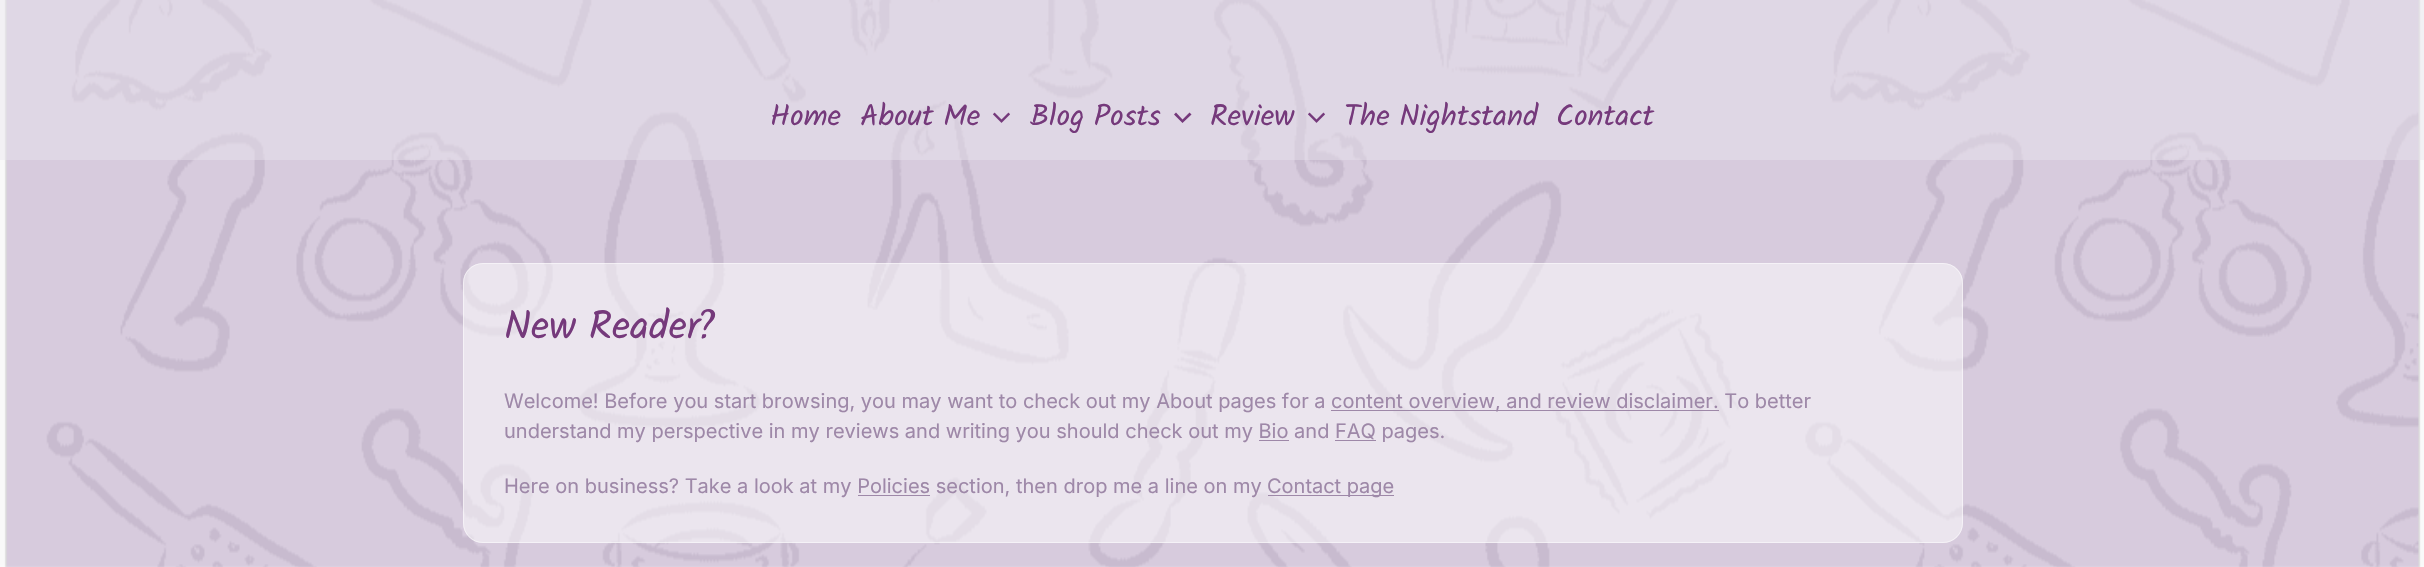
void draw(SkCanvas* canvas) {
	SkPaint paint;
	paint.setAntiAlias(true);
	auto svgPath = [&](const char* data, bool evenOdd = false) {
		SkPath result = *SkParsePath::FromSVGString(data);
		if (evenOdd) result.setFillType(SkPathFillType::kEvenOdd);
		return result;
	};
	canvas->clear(0xffffffff);
	canvas->drawImageRect(SkImages::DeferredFromEncodedData(SkData::MakeFromFileName("img1.png")), SkRect::MakeXYWH(0, 0, 2424, 567), SkSamplingOptions());
	paint.setColor(0x75eae5ee);
	canvas->drawRect(SkRect::MakeXYWH(0, 0, 2424, 160), paint);
	SkFont f1(fontMgr->matchFamilyStyle("Solitreo", SkFontStyle::Normal()), 30);
	f1.setSubpixel(true);
	paint.setColor(0xff75397b);
	canvas->drawString("Home", 770, 125, f1, paint);
	canvas->drawString("About Me", 860, 125, f1, paint);
	canvas->drawImageRect(SkImages::DeferredFromEncodedData(SkData::MakeFromFileName("img2.png")), SkRect::MakeXYWH(993, 112, 17, 11), SkSamplingOptions());
	canvas->drawString("Blog Posts", 1030, 125, f1, paint);
	canvas->drawPath(svgPath("M1174 114.5L1182.5 123L1191.5 114.5L1189.5 112.5L1182.5 119.5L1176 112.5Z"), paint);
	canvas->drawString("Review", 1210, 125, f1, paint);
	canvas->drawImageRect(SkImages::DeferredFromEncodedData(SkData::MakeFromFileName("img2.png")), SkRect::MakeXYWH(1308, 112, 17, 11), SkSamplingOptions());
	canvas->drawString("The Nightstand", 1344, 125, f1, paint);
	canvas->drawString("Contact", 1556, 125, f1, paint);
	paint.setColor(0x80ffffff);
	canvas->drawRoundRect(SkRect::MakeXYWH(463, 263, 1500, 280), 20, 20, paint);
	paint.setStroke(true);
	paint.setStrokeWidth(1);
	canvas->drawRoundRect(SkRect::MakeXYWH(463.5, 263.5, 1499, 279), 19.5, 19.5, paint);
	SkFont f2(fontMgr->matchFamilyStyle("Solitreo", SkFontStyle::Normal()), 40);
	f2.setSubpixel(true);
	paint.setStroke(false);
	paint.setColor(0xff75397b);
	canvas->drawString("New Reader?", 504, 338, f2, paint);
	SkFont f3(fontMgr->matchFamilyStyle("Inter", SkFontStyle::Normal()), 20);
	f3.setSubpixel(true);
	paint.setColor(0xff9e88a8);
	canvas->drawString("Welcome! Before you start browsing, you may want to check out my About pages for a", 504, 408, f3, paint);
	canvas->drawRect(SkRect::MakeXYWH(1331, 410, 388, 1), paint);
	canvas->drawString("content overview, and review disclaimer. To better", 1331, 408, f3, paint);
	canvas->drawString("understand my perspective in my reviews and writing you should check out my Bio and FAQ pages.", 504, 438, f3, paint);
	canvas->drawRect(SkRect::MakeXYWH(1259, 440, 30, 1), paint);
	canvas->drawRect(SkRect::MakeXYWH(1335, 440, 41, 1), paint);
	canvas->drawString("Here on business? Take a look at my Policies section, then drop me a line on my", 504, 493, f3, paint);
	canvas->drawRect(SkRect::MakeXYWH(1268, 495, 126, 1), paint);
	canvas->drawString("Contact page", 1267, 493, f3, paint);
	canvas->drawRect(SkRect::MakeXYWH(858, 495, 72, 1), paint);
}
